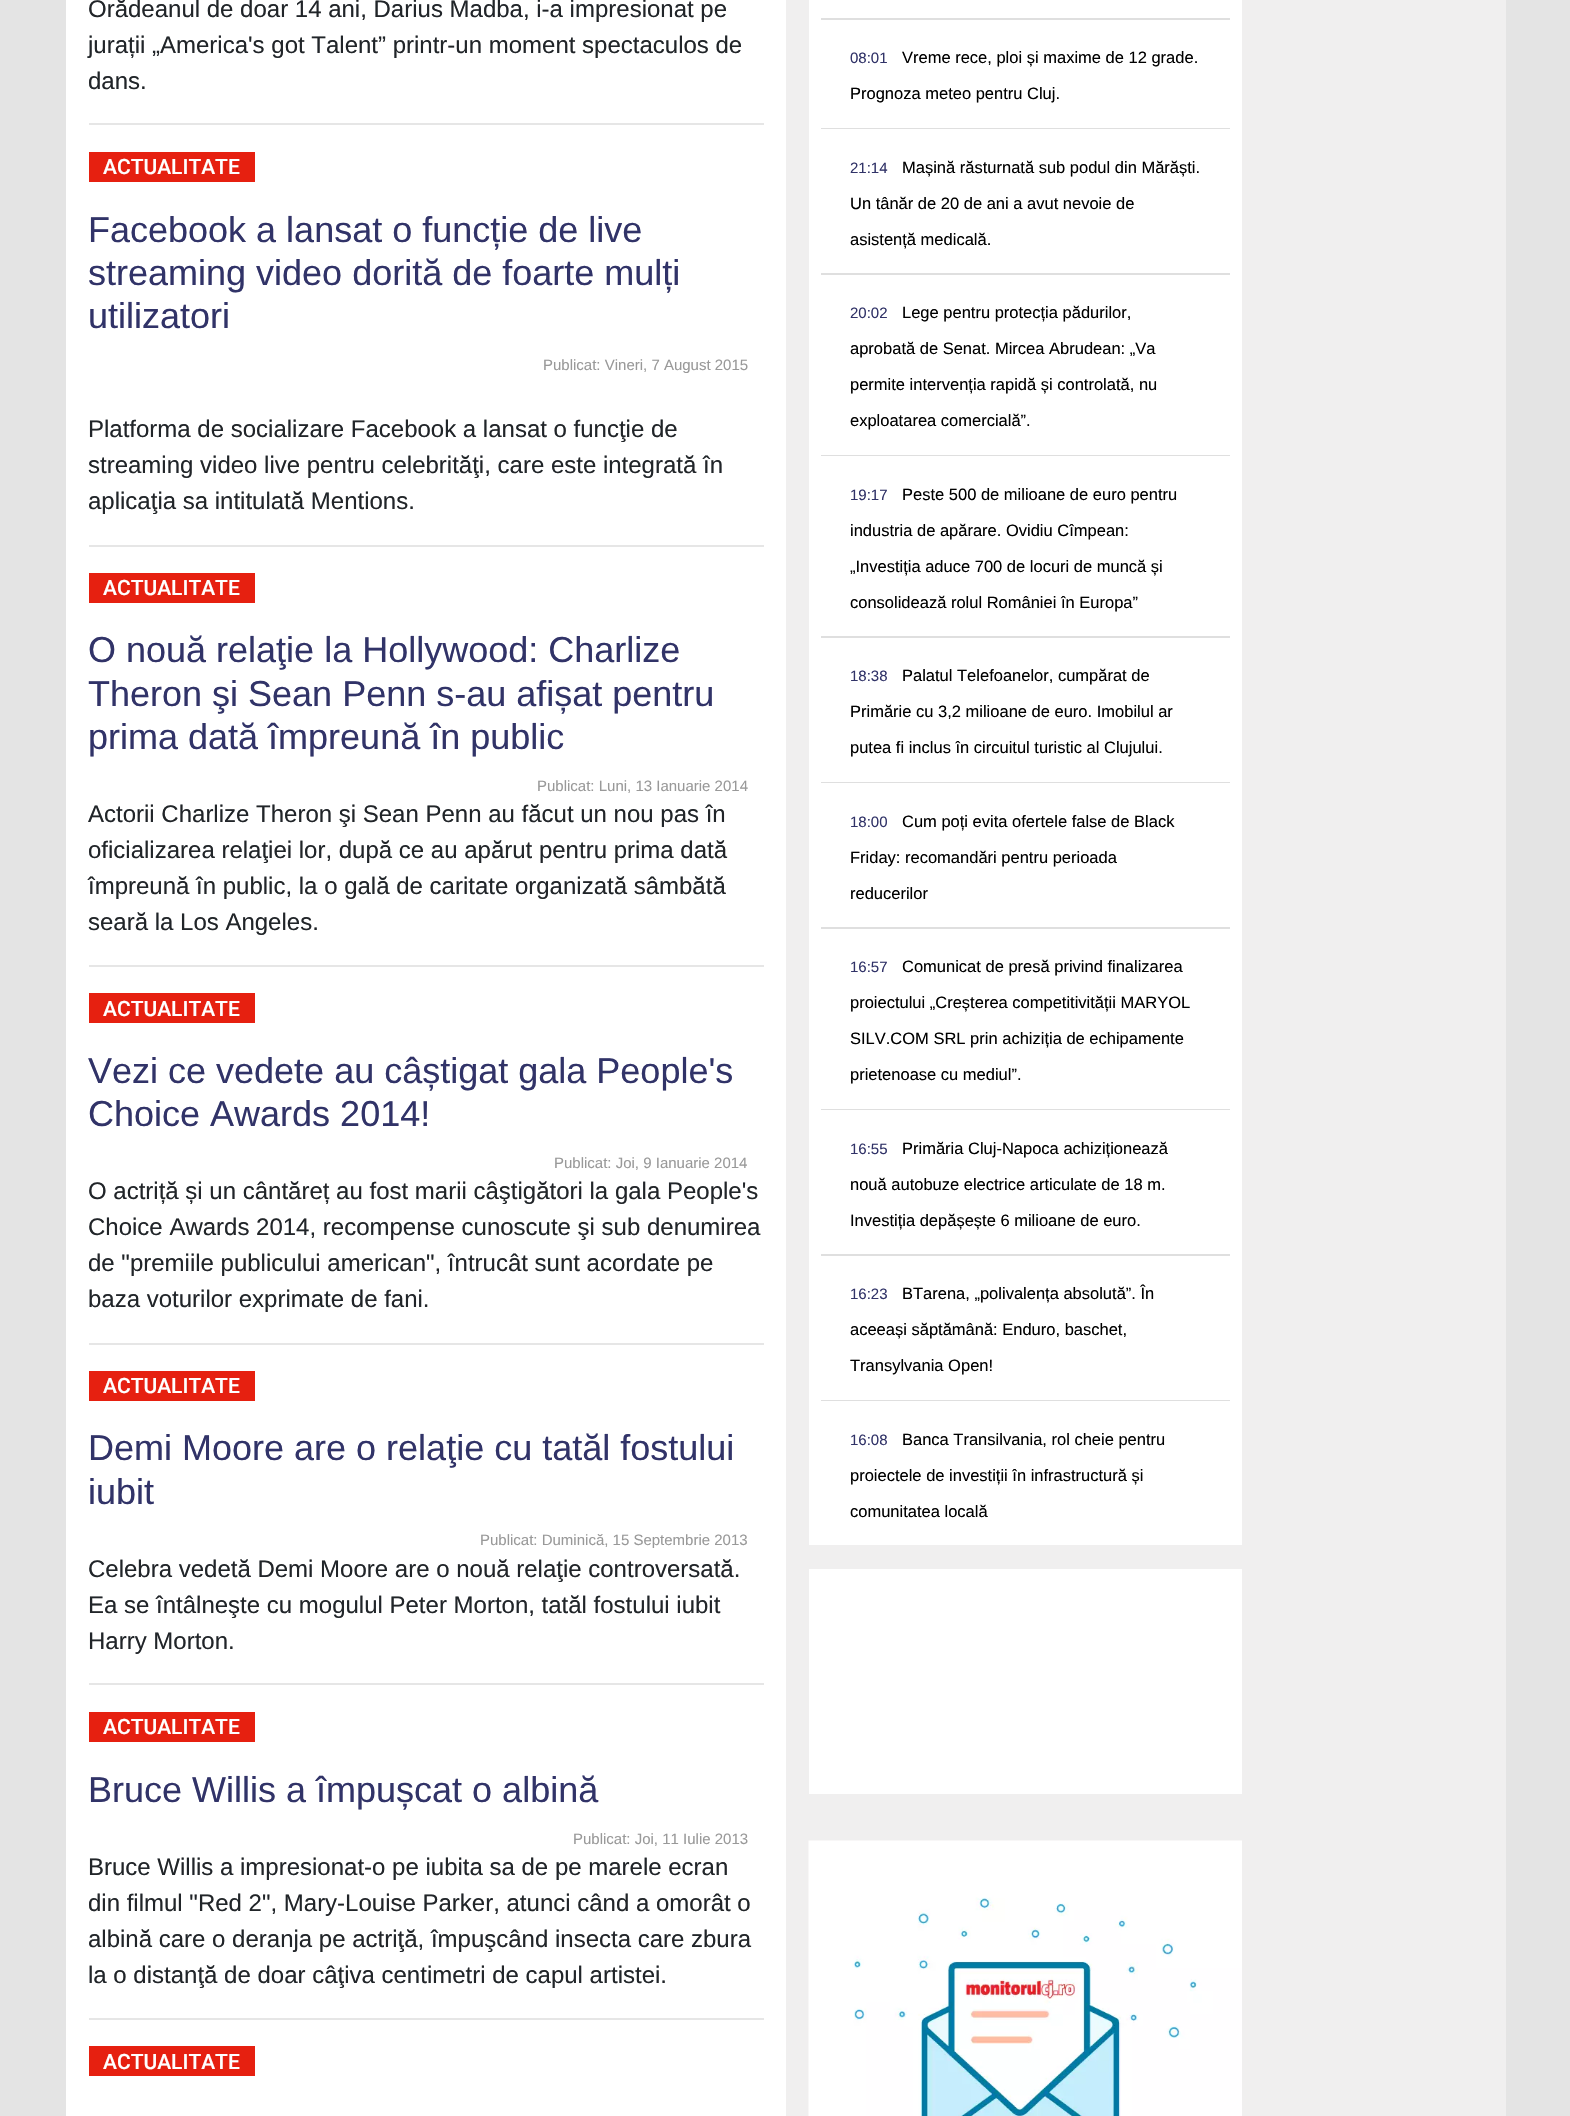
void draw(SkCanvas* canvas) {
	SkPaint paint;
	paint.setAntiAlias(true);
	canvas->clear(0xffe4e4e4);
	paint.setColor(0xfff0efef);
	canvas->drawRect(SkRect::MakeXYWH(786, 0, 720, 2116), paint);
	paint.setColor(0xffffffff);
	canvas->drawRect(SkRect::MakeXYWH(66, 0, 720, 2116), paint);
	SkFont f1(fontMgr->matchFamilyStyle("Liberation Sans", SkFontStyle::Normal()), 24);
	f1.setSubpixel(true);
	paint.setColor(0xff212529);
	canvas->drawString("Orădeanul de doar 14 ani, Darius Madba, i-a impresionat pe", 88, 17, f1, paint);
	canvas->drawString("jurații „America's got Talent” printr-un moment spectaculos de", 88, 53, f1, paint);
	canvas->drawString("dans.", 88, 89, f1, paint);
	paint.setColor(0xffe6e6e6);
	canvas->drawRect(SkRect::MakeXYWH(89, 123, 675, 2), paint);
	paint.setColor(0xffe62010);
	canvas->drawRect(SkRect::MakeXYWH(89, 152, 166, 30), paint);
	SkFont f2(fontMgr->matchFamilyStyle("Roboto", SkFontStyle(500, SkFontStyle::kNormal_Width, SkFontStyle::kUpright_Slant)), 21);
	f2.setSubpixel(true);
	paint.setColor(0xffffffff);
	canvas->drawString("ACTUALITATE", 103, 174, f2, paint);
	SkFont f3(fontMgr->matchFamilyStyle("Liberation Sans", SkFontStyle::Normal()), 36);
	f3.setSubpixel(true);
	paint.setColor(0xff313368);
	canvas->drawString("Facebook a lansat o funcție de live", 88, 242, f3, paint);
	canvas->drawString("streaming video dorită de foarte mulți", 88, 285, f3, paint);
	canvas->drawString("utilizatori", 88, 328, f3, paint);
	SkFont f4(fontMgr->matchFamilyStyle("Liberation Sans", SkFontStyle::Normal()), 15);
	f4.setSubpixel(true);
	paint.setColor(0xff999999);
	canvas->drawString("Publicat: Vineri, 7 August 2015", 543, 370, f4, paint);
	paint.setColor(0xff212529);
	canvas->drawString("Platforma de socializare Facebook a lansat o funcţie de", 88, 437, f1, paint);
	canvas->drawString("streaming video live pentru celebrităţi, care este integrată în", 88, 473, f1, paint);
	canvas->drawString("aplicaţia sa intitulată Mentions.", 88, 509, f1, paint);
	paint.setColor(0xffe6e6e6);
	canvas->drawRect(SkRect::MakeXYWH(89, 545, 675, 2), paint);
	paint.setColor(0xffe62010);
	canvas->drawRect(SkRect::MakeXYWH(89, 573, 166, 30), paint);
	paint.setColor(0xffffffff);
	canvas->drawString("ACTUALITATE", 103, 595, f2, paint);
	paint.setColor(0xff313368);
	canvas->drawString("O nouă relaţie la Hollywood: Charlize", 88, 662, f3, paint);
	canvas->drawString("Theron şi Sean Penn s-au afișat pentru", 88, 706, f3, paint);
	canvas->drawString("prima dată împreună în public", 88, 749, f3, paint);
	paint.setColor(0xff999999);
	canvas->drawString("Publicat: Luni, 13 Ianuarie 2014", 537, 791, f4, paint);
	paint.setColor(0xff212529);
	canvas->drawString("Actorii Charlize Theron şi Sean Penn au făcut un nou pas în", 88, 822, f1, paint);
	canvas->drawString("oficializarea relaţiei lor, după ce au apărut pentru prima dată", 88, 858, f1, paint);
	canvas->drawString("împreună în public, la o gală de caritate organizată sâmbătă", 88, 894, f1, paint);
	canvas->drawString("seară la Los Angeles.", 88, 930, f1, paint);
	paint.setColor(0xffe6e6e6);
	canvas->drawRect(SkRect::MakeXYWH(89, 965, 675, 2), paint);
	paint.setColor(0xffe62010);
	canvas->drawRect(SkRect::MakeXYWH(89, 993, 166, 30), paint);
	paint.setColor(0xffffffff);
	canvas->drawString("ACTUALITATE", 103, 1016, f2, paint);
	paint.setColor(0xff313368);
	canvas->drawString("Vezi ce vedete au câștigat gala People's", 88, 1083, f3, paint);
	canvas->drawString("Choice Awards 2014!", 88, 1126, f3, paint);
	paint.setColor(0xff999999);
	canvas->drawString("Publicat: Joi, 9 Ianuarie 2014", 554, 1168, f4, paint);
	paint.setColor(0xff212529);
	canvas->drawString("O actriță și un cântăreț au fost marii câştigători la gala People's", 88, 1199, f1, paint);
	canvas->drawString("Choice Awards 2014, recompense cunoscute şi sub denumirea", 88, 1235, f1, paint);
	canvas->drawString("de \"premiile publicului american\", întrucât sunt acordate pe", 88, 1271, f1, paint);
	canvas->drawString("baza voturilor exprimate de fani.", 88, 1307, f1, paint);
	paint.setColor(0xffe6e6e6);
	canvas->drawRect(SkRect::MakeXYWH(89, 1343, 675, 2), paint);
	paint.setColor(0xffe62010);
	canvas->drawRect(SkRect::MakeXYWH(89, 1371, 166, 30), paint);
	paint.setColor(0xffffffff);
	canvas->drawString("ACTUALITATE", 103, 1393, f2, paint);
	paint.setColor(0xff313368);
	canvas->drawString("Demi Moore are o relaţie cu tatăl fostului", 88, 1460, f3, paint);
	canvas->drawString("iubit", 88, 1504, f3, paint);
	paint.setColor(0xff999999);
	canvas->drawString("Publicat: Duminică, 15 Septembrie 2013", 480, 1545, f4, paint);
	paint.setColor(0xff212529);
	canvas->drawString("Celebra vedetă Demi Moore are o nouă relaţie controversată.", 88, 1577, f1, paint);
	canvas->drawString("Ea se întâlneşte cu mogulul Peter Morton, tatăl fostului iubit", 88, 1613, f1, paint);
	canvas->drawString("Harry Morton.", 88, 1649, f1, paint);
	paint.setColor(0xffe6e6e6);
	canvas->drawRect(SkRect::MakeXYWH(89, 1683, 675, 2), paint);
	paint.setColor(0xffe62010);
	canvas->drawRect(SkRect::MakeXYWH(89, 1712, 166, 30), paint);
	paint.setColor(0xffffffff);
	canvas->drawString("ACTUALITATE", 103, 1734, f2, paint);
	paint.setColor(0xff313368);
	canvas->drawString("Bruce Willis a împușcat o albină", 88, 1802, f3, paint);
	paint.setColor(0xff999999);
	canvas->drawString("Publicat: Joi, 11 Iulie 2013", 573, 1844, f4, paint);
	paint.setColor(0xff212529);
	canvas->drawString("Bruce Willis a impresionat-o pe iubita sa de pe marele ecran", 88, 1875, f1, paint);
	canvas->drawString("din filmul \"Red 2\", Mary-Louise Parker, atunci când a omorât o", 88, 1911, f1, paint);
	canvas->drawString("albină care o deranja pe actriţă, împuşcând insecta care zbura", 88, 1947, f1, paint);
	canvas->drawString("la o distanţă de doar câţiva centimetri de capul artistei.", 88, 1983, f1, paint);
	paint.setColor(0xffe6e6e6);
	canvas->drawRect(SkRect::MakeXYWH(89, 2018, 675, 2), paint);
	paint.setColor(0xffe62010);
	canvas->drawRect(SkRect::MakeXYWH(89, 2046, 166, 30), paint);
	paint.setColor(0xffffffff);
	canvas->drawString("ACTUALITATE", 103, 2069, f2, paint);
	canvas->drawRect(SkRect::MakeXYWH(809, 0, 433, 1545), paint);
	paint.setColor(0xffdfdfdf);
	canvas->drawRect(SkRect::MakeXYWH(821, 18, 409, 2), paint);
	canvas->drawRect(SkRect::MakeXYWH(821, 128, 409, 1), paint);
	paint.setColor(0xff313368);
	canvas->drawString("08:01", 850, 63, f4, paint);
	SkFont f5(fontMgr->matchFamilyStyle("Liberation Sans", SkFontStyle::Normal()), 16.5);
	f5.setSubpixel(true);
	paint.setColor(0xff000000);
	canvas->drawString("Vreme rece, ploi și maxime de 12 grade.", 902, 63, f5, paint);
	canvas->drawString("Prognoza meteo pentru Cluj.", 850, 99, f5, paint);
	paint.setColor(0xffdfdfdf);
	canvas->drawRect(SkRect::MakeXYWH(821, 273, 409, 2), paint);
	paint.setColor(0xff313368);
	canvas->drawString("21:14", 850, 173, f4, paint);
	paint.setColor(0xff000000);
	canvas->drawString("Mașină răsturnată sub podul din Mărăști.", 902, 173, f5, paint);
	canvas->drawString("Un tânăr de 20 de ani a avut nevoie de", 850, 209, f5, paint);
	canvas->drawString("asistență medicală.", 850, 245, f5, paint);
	paint.setColor(0xffdfdfdf);
	canvas->drawRect(SkRect::MakeXYWH(821, 455, 409, 1), paint);
	paint.setColor(0xff313368);
	canvas->drawString("20:02", 850, 318, f4, paint);
	paint.setColor(0xff000000);
	canvas->drawString("Lege pentru protecția pădurilor,", 902, 318, f5, paint);
	canvas->drawString("aprobată de Senat. Mircea Abrudean: „Va", 850, 354, f5, paint);
	canvas->drawString("permite intervenția rapidă și controlată, nu", 850, 390, f5, paint);
	canvas->drawString("exploatarea comercială”.", 850, 426, f5, paint);
	paint.setColor(0xffdfdfdf);
	canvas->drawRect(SkRect::MakeXYWH(821, 636, 409, 2), paint);
	paint.setColor(0xff313368);
	canvas->drawString("19:17", 850, 500, f4, paint);
	paint.setColor(0xff000000);
	canvas->drawString("Peste 500 de milioane de euro pentru", 902, 500, f5, paint);
	canvas->drawString("industria de apărare. Ovidiu Cîmpean:", 850, 536, f5, paint);
	canvas->drawString("„Investiția aduce 700 de locuri de muncă și", 850, 572, f5, paint);
	canvas->drawString("consolidează rolul României în Europa”", 850, 608, f5, paint);
	paint.setColor(0xffdfdfdf);
	canvas->drawRect(SkRect::MakeXYWH(821, 782, 409, 1), paint);
	paint.setColor(0xff313368);
	canvas->drawString("18:38", 850, 681, f4, paint);
	paint.setColor(0xff000000);
	canvas->drawString("Palatul Telefoanelor, cumpărat de", 902, 681, f5, paint);
	canvas->drawString("Primărie cu 3,2 milioane de euro. Imobilul ar", 850, 717, f5, paint);
	canvas->drawString("putea fi inclus în circuitul turistic al Clujului.", 850, 753, f5, paint);
	paint.setColor(0xffdfdfdf);
	canvas->drawRect(SkRect::MakeXYWH(821, 927, 409, 2), paint);
	paint.setColor(0xff313368);
	canvas->drawString("18:00", 850, 827, f4, paint);
	paint.setColor(0xff000000);
	canvas->drawString("Cum poți evita ofertele false de Black", 902, 827, f5, paint);
	canvas->drawString("Friday: recomandări pentru perioada", 850, 863, f5, paint);
	canvas->drawString("reducerilor", 850, 899, f5, paint);
	paint.setColor(0xffdfdfdf);
	canvas->drawRect(SkRect::MakeXYWH(821, 1109, 409, 1), paint);
	paint.setColor(0xff313368);
	canvas->drawString("16:57", 850, 972, f4, paint);
	paint.setColor(0xff000000);
	canvas->drawString("Comunicat de presă privind finalizarea", 902, 972, f5, paint);
	canvas->drawString("proiectului „Creșterea competitivității MARYOL", 850, 1008, f5, paint);
	canvas->drawString("SILV.COM SRL prin achiziția de echipamente", 850, 1044, f5, paint);
	canvas->drawString("prietenoase cu mediul”.", 850, 1080, f5, paint);
	paint.setColor(0xffdfdfdf);
	canvas->drawRect(SkRect::MakeXYWH(821, 1254, 409, 2), paint);
	paint.setColor(0xff313368);
	canvas->drawString("16:55", 850, 1154, f4, paint);
	paint.setColor(0xff000000);
	canvas->drawString("Primăria Cluj-Napoca achiziționează", 902, 1154, f5, paint);
	canvas->drawString("nouă autobuze electrice articulate de 18 m.", 850, 1190, f5, paint);
	canvas->drawString("Investiția depășește 6 milioane de euro.", 850, 1226, f5, paint);
	paint.setColor(0xffdfdfdf);
	canvas->drawRect(SkRect::MakeXYWH(821, 1400, 409, 1), paint);
	paint.setColor(0xff313368);
	canvas->drawString("16:23", 850, 1299, f4, paint);
	paint.setColor(0xff000000);
	canvas->drawString("BTarena, „polivalența absolută”. În", 902, 1299, f5, paint);
	canvas->drawString("aceeași săptămână: Enduro, baschet,", 850, 1335, f5, paint);
	canvas->drawString("Transylvania Open!", 850, 1371, f5, paint);
	paint.setColor(0xff313368);
	canvas->drawString("16:08", 850, 1445, f4, paint);
	paint.setColor(0xff000000);
	canvas->drawString("Banca Transilvania, rol cheie pentru", 902, 1445, f5, paint);
	canvas->drawString("proiectele de investiții în infrastructură și", 850, 1481, f5, paint);
	canvas->drawString("comunitatea locală", 850, 1517, f5, paint);
	paint.setColor(0xffffffff);
	canvas->drawRect(SkRect::MakeXYWH(809, 1569, 433, 225), paint);
	canvas->drawImageRect(SkImages::DeferredFromEncodedData(SkData::MakeFromFileName("img1.png")), SkRect::MakeXYWH(808, 1840, 434, 276), SkSamplingOptions());
}
